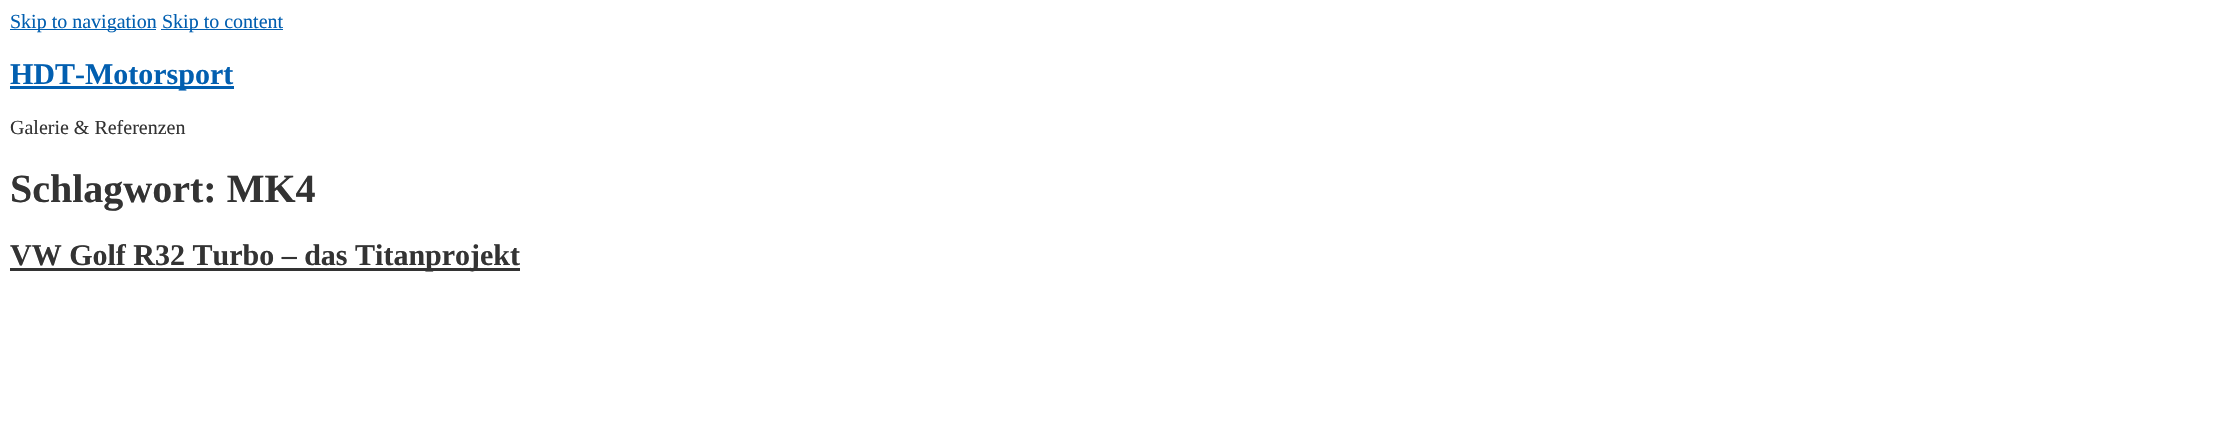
void draw(SkCanvas* canvas) {
	SkPaint paint;
	paint.setAntiAlias(true);
	canvas->clear(0xffffffff);
	paint.setColor(0xff025fb0);
	canvas->drawRect(SkRect::MakeXYWH(10, 29, 146, 1), paint);
	SkFont f1(fontMgr->matchFamilyStyle("Liberation Serif", SkFontStyle::Normal()), 20);
	f1.setSubpixel(true);
	canvas->drawString("Skip to navigation", 10, 28, f1, paint);
	canvas->drawRect(SkRect::MakeXYWH(161, 29, 122, 1), paint);
	canvas->drawString("Skip to content", 162, 28, f1, paint);
	canvas->drawRect(SkRect::MakeXYWH(10, 86, 224, 3), paint);
	SkFont f2(fontMgr->matchFamilyStyle("Liberation Serif", SkFontStyle::Bold()), 30);
	f2.setSubpixel(true);
	canvas->drawString("HDT-Motorsport", 10, 84, f2, paint);
	paint.setColor(0xff333333);
	canvas->drawString("Galerie & Referenzen", 10, 134, f1, paint);
	SkFont f3(fontMgr->matchFamilyStyle("Liberation Serif", SkFontStyle::Bold()), 40);
	f3.setSubpixel(true);
	canvas->drawString("Schlagwort: MK4", 10, 202, f3, paint);
	canvas->drawRect(SkRect::MakeXYWH(10, 268, 510, 3), paint);
	canvas->drawString("VW Golf R32 Turbo – das Titanprojekt", 10, 265, f2, paint);
}
